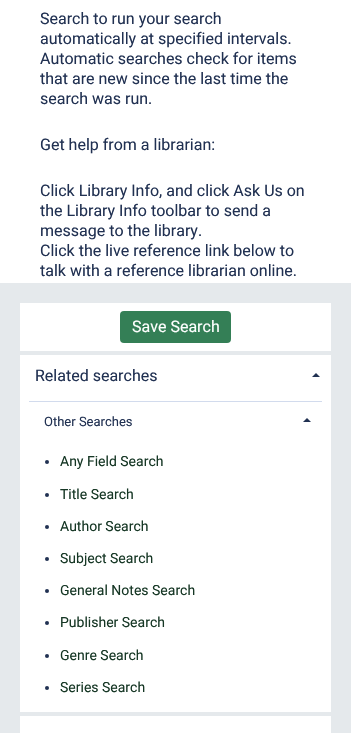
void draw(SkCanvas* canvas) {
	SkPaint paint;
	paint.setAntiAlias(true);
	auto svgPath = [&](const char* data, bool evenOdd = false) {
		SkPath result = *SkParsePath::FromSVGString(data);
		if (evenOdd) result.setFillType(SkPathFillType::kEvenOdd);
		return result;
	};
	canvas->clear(0xffe5e9ec);
	paint.setColor(0xffffffff);
	canvas->drawRect(SkRect::MakeXYWH(0, 0, 351, 283), paint);
	SkFont f1(fontMgr->matchFamilyStyle("Roboto", SkFontStyle::Normal()), 16);
	f1.setSubpixel(true);
	paint.setColor(0xff213152);
	canvas->drawString("Search to run your search", 40, 24, f1, paint);
	canvas->drawString("automatically at specified intervals.", 40, 44, f1, paint);
	canvas->drawString("Automatic searches check for items", 40, 64, f1, paint);
	canvas->drawString("that are new since the last time the", 40, 84, f1, paint);
	canvas->drawString("search was run.", 40, 104, f1, paint);
	canvas->drawString("Get help from a librarian:", 40, 150, f1, paint);
	canvas->drawString("Click Library Info, and click Ask Us on", 40, 196, f1, paint);
	canvas->drawString("the Library Info toolbar to send a", 40, 216, f1, paint);
	canvas->drawString("message to the library.", 40, 236, f1, paint);
	canvas->drawString("Click the live reference link below to", 40, 256, f1, paint);
	canvas->drawString("talk with a reference librarian online.", 40, 276, f1, paint);
	paint.setColor(0xffffffff);
	canvas->drawRect(SkRect::MakeXYWH(20, 303, 311, 48), paint);
	paint.setColor(0xff347f56);
	canvas->drawRoundRect(SkRect::MakeXYWH(120, 311, 111, 32), 4, 4, paint);
	paint.setColor(0xffffffff);
	canvas->drawString("Save Search", 132, 332, f1, paint);
	canvas->drawRect(SkRect::MakeXYWH(20, 355, 311, 357), paint);
	paint.setColor(0xff213152);
	canvas->drawString("Related searches", 35, 381, f1, paint);
	canvas->drawPath(svgPath("M320 377H312L316 373Z"), paint);
	paint.setColor(0xffd2dbed);
	canvas->drawRect(SkRect::MakeXYWH(29, 401, 293, 1), paint);
	SkFont f2(fontMgr->matchFamilyStyle("Roboto", SkFontStyle::Normal()), 13);
	f2.setSubpixel(true);
	paint.setColor(0xff213152);
	canvas->drawString("Other Searches", 44, 426, f2, paint);
	canvas->drawPath(svgPath("M311 422H303L307 418Z"), paint);
	canvas->drawCircle(47, 462, 2, paint);
	SkFont f3(fontMgr->matchFamilyStyle("Roboto", SkFontStyle::Normal()), 14);
	f3.setSubpixel(true);
	paint.setColor(0xff163725);
	canvas->drawString("Any Field Search", 60, 466, f3, paint);
	paint.setColor(0xff213152);
	canvas->drawCircle(47, 495, 2, paint);
	paint.setColor(0xff163725);
	canvas->drawString("Title Search", 60, 499, f3, paint);
	paint.setColor(0xff213152);
	canvas->drawCircle(47, 527, 2, paint);
	paint.setColor(0xff163725);
	canvas->drawString("Author Search", 60, 531, f3, paint);
	paint.setColor(0xff213152);
	canvas->drawCircle(47, 559, 2, paint);
	paint.setColor(0xff163725);
	canvas->drawString("Subject Search", 60, 563, f3, paint);
	paint.setColor(0xff213152);
	canvas->drawCircle(47, 591, 2, paint);
	paint.setColor(0xff163725);
	canvas->drawString("General Notes Search", 60, 595, f3, paint);
	paint.setColor(0xff213152);
	canvas->drawCircle(47, 623, 2, paint);
	paint.setColor(0xff163725);
	canvas->drawString("Publisher Search", 60, 627, f3, paint);
	paint.setColor(0xff213152);
	canvas->drawCircle(47, 656, 2, paint);
	paint.setColor(0xff163725);
	canvas->drawString("Genre Search", 60, 660, f3, paint);
	paint.setColor(0xff213152);
	canvas->drawCircle(47, 688, 2, paint);
	paint.setColor(0xff163725);
	canvas->drawString("Series Search", 60, 692, f3, paint);
	paint.setColor(0xffffffff);
	canvas->drawRect(SkRect::MakeXYWH(20, 716, 311, 17), paint);
}
